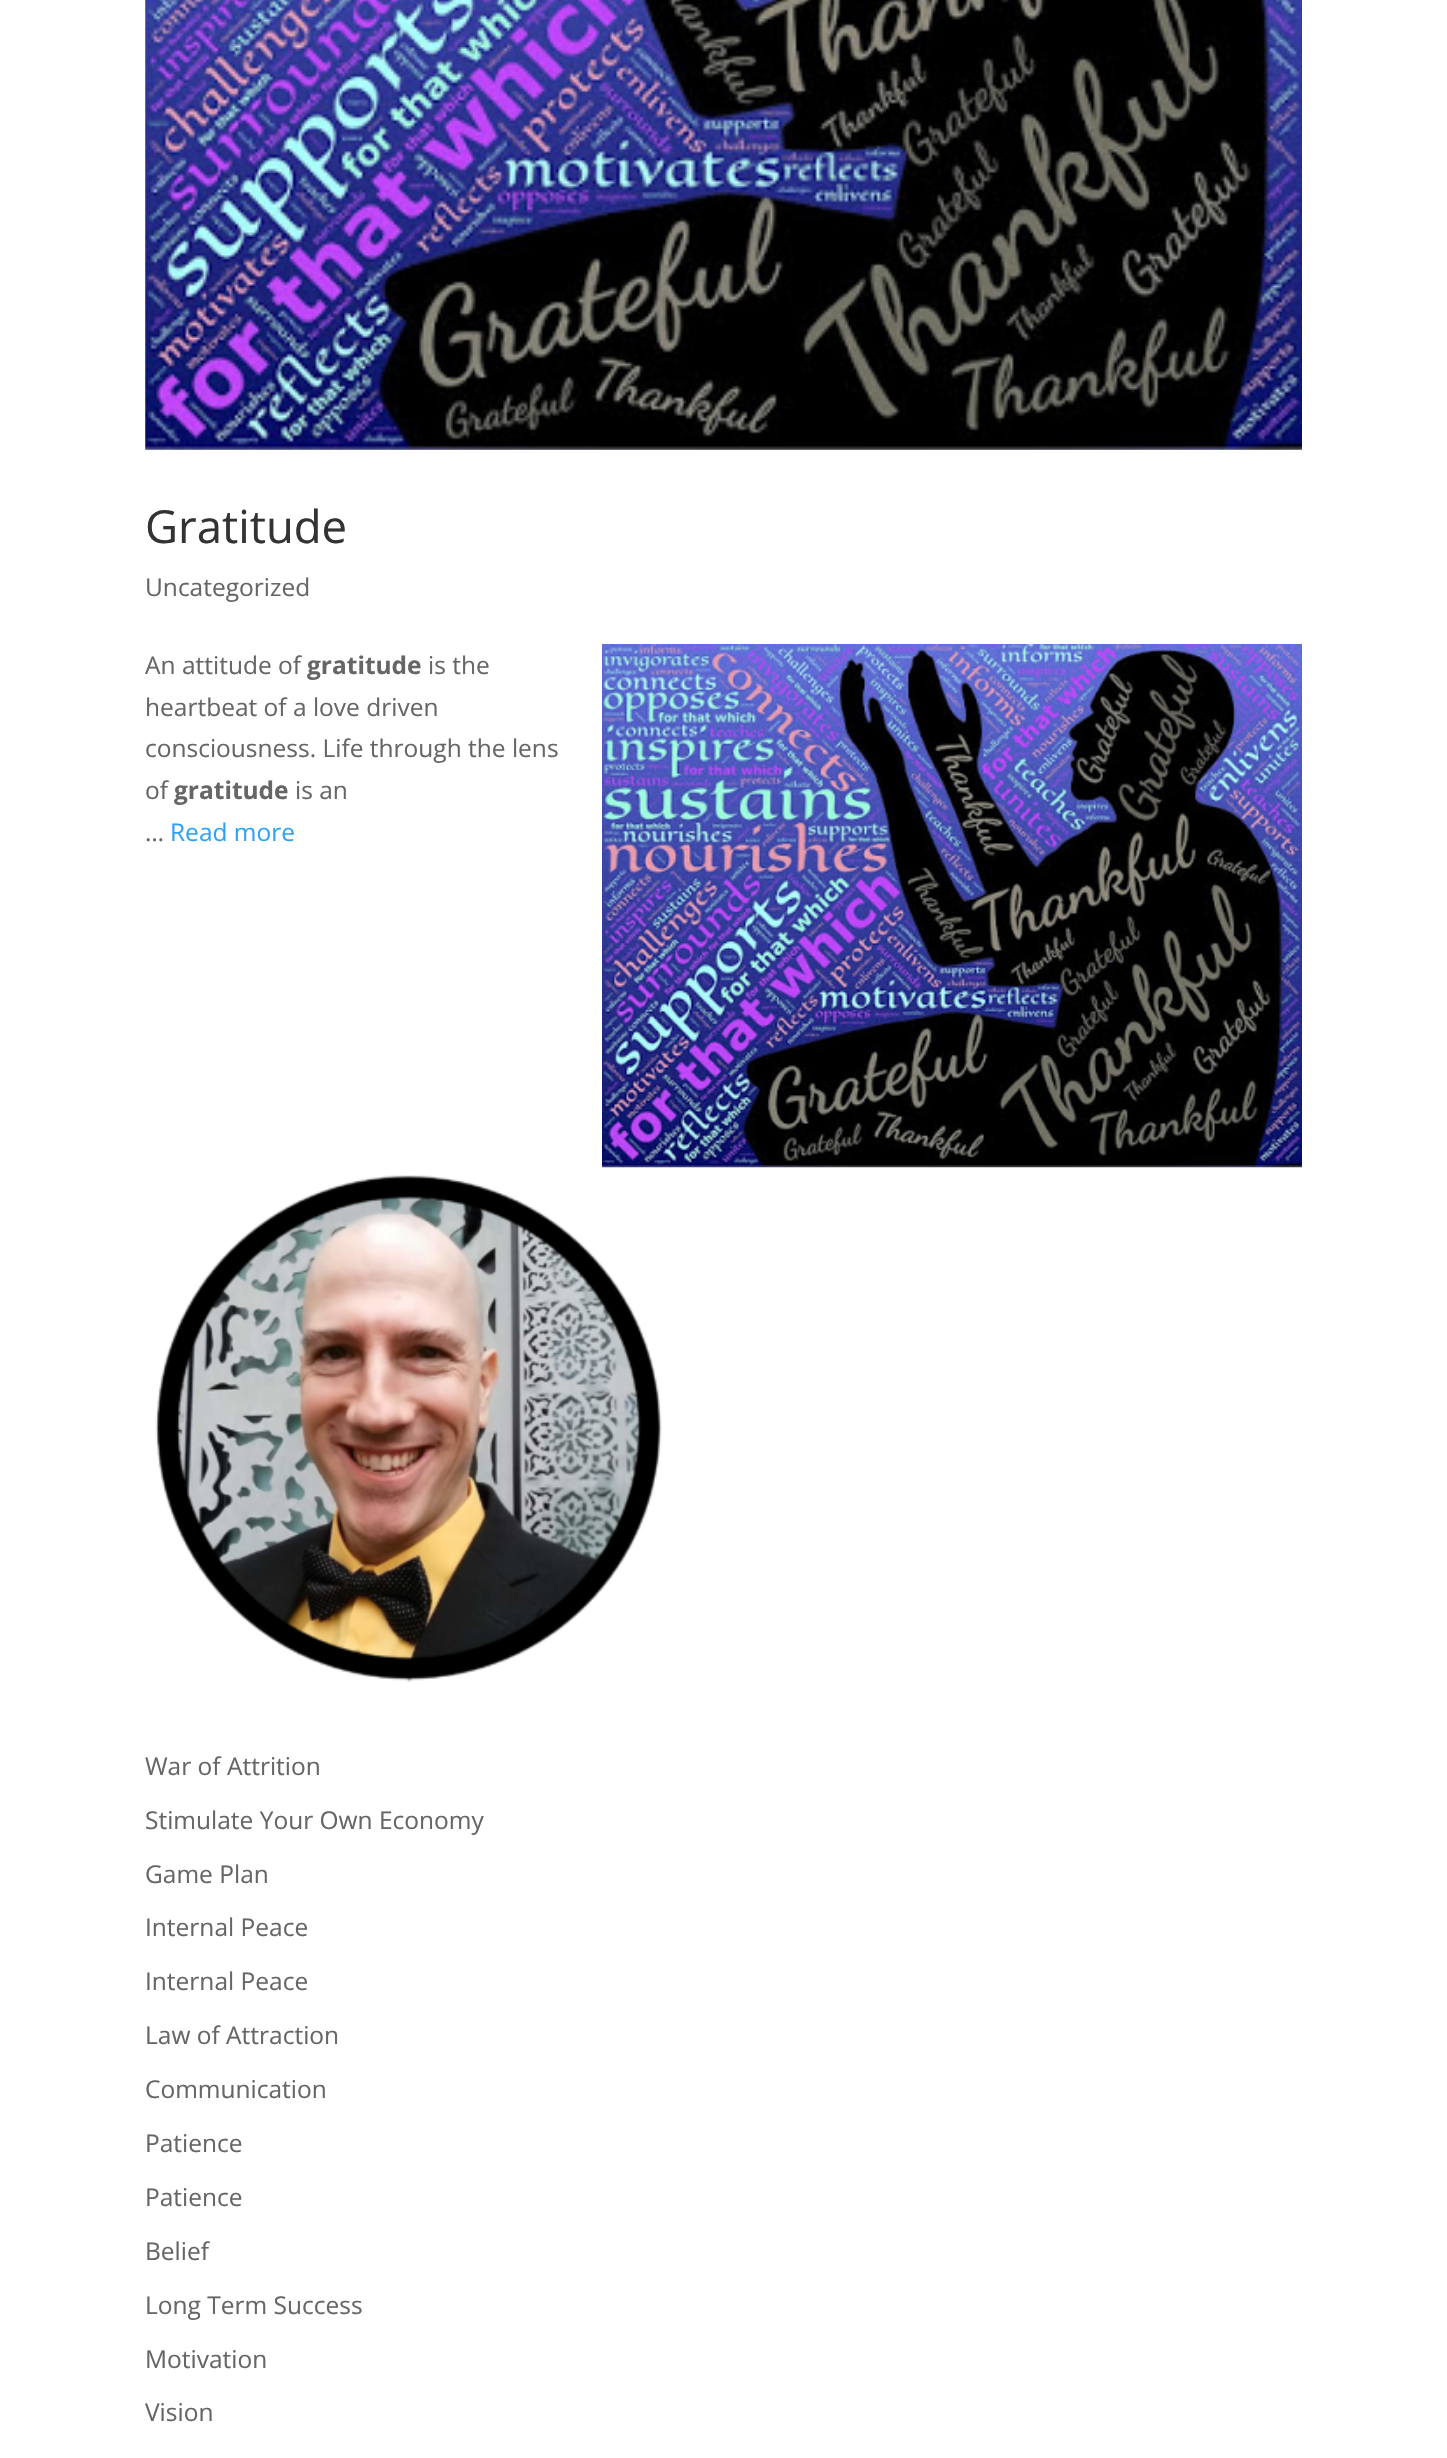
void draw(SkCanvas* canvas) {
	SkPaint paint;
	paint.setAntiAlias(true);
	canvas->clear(0xffffffff);
	canvas->drawImageRect(SkImages::DeferredFromEncodedData(SkData::MakeFromFileName("img1.png")), SkRect::MakeXYWH(145, 0, 1157, 450), SkSamplingOptions());
	SkFont f1(fontMgr->matchFamilyStyle("Open Sans", SkFontStyle::Normal()), 45.5);
	f1.setSubpixel(true);
	paint.setColor(0xff333333);
	canvas->drawString("Gratitude", 145, 543, f1, paint);
	SkFont f2(fontMgr->matchFamilyStyle("Open Sans", SkFontStyle::Normal()), 24.5);
	f2.setSubpixel(true);
	paint.setColor(0xff666666);
	canvas->drawString("Uncategorized", 145, 596, f2, paint);
	canvas->drawString("An attitude of", 145, 674, f2, paint);
	SkFont f3(fontMgr->matchFamilyStyle("Open Sans", SkFontStyle::Bold()), 24.5);
	f3.setSubpixel(true);
	canvas->drawString("gratitude", 307, 674, f3, paint);
	canvas->drawString("is the", 428, 674, f2, paint);
	canvas->drawString("heartbeat of a love driven", 145, 716, f2, paint);
	canvas->drawString("consciousness. Life through the lens", 145, 757, f2, paint);
	canvas->drawString("of", 145, 799, f2, paint);
	canvas->drawString("gratitude", 174, 799, f3, paint);
	canvas->drawString("is an", 295, 799, f2, paint);
	canvas->drawImageRect(SkImages::DeferredFromEncodedData(SkData::MakeFromFileName("img2.png")), SkRect::MakeXYWH(602, 644, 700, 524), SkSamplingOptions());
	canvas->drawString("…", 145, 841, f2, paint);
	paint.setColor(0xff2ea3f2);
	canvas->drawString("Read more", 170, 841, f2, paint);
	canvas->drawImageRect(SkImages::DeferredFromEncodedData(SkData::MakeFromFileName("img3.png")), SkRect::MakeXYWH(155, 1175, 507, 508), SkSamplingOptions());
	paint.setColor(0xff666666);
	canvas->drawString("War of Attrition", 145, 1775, f2, paint);
	canvas->drawString("Stimulate Your Own Economy", 145, 1829, f2, paint);
	canvas->drawString("Game Plan", 145, 1883, f2, paint);
	canvas->drawString("Internal Peace", 145, 1936, f2, paint);
	canvas->drawString("Internal Peace", 145, 1990, f2, paint);
	canvas->drawString("Law of Attraction", 145, 2044, f2, paint);
	canvas->drawString("Communication", 145, 2098, f2, paint);
	canvas->drawString("Patience", 145, 2152, f2, paint);
	canvas->drawString("Patience", 145, 2206, f2, paint);
	canvas->drawString("Belief", 145, 2260, f2, paint);
	canvas->drawString("Long Term Success", 145, 2314, f2, paint);
	canvas->drawString("Motivation", 145, 2368, f2, paint);
	canvas->drawString("Vision", 145, 2421, f2, paint);
}
